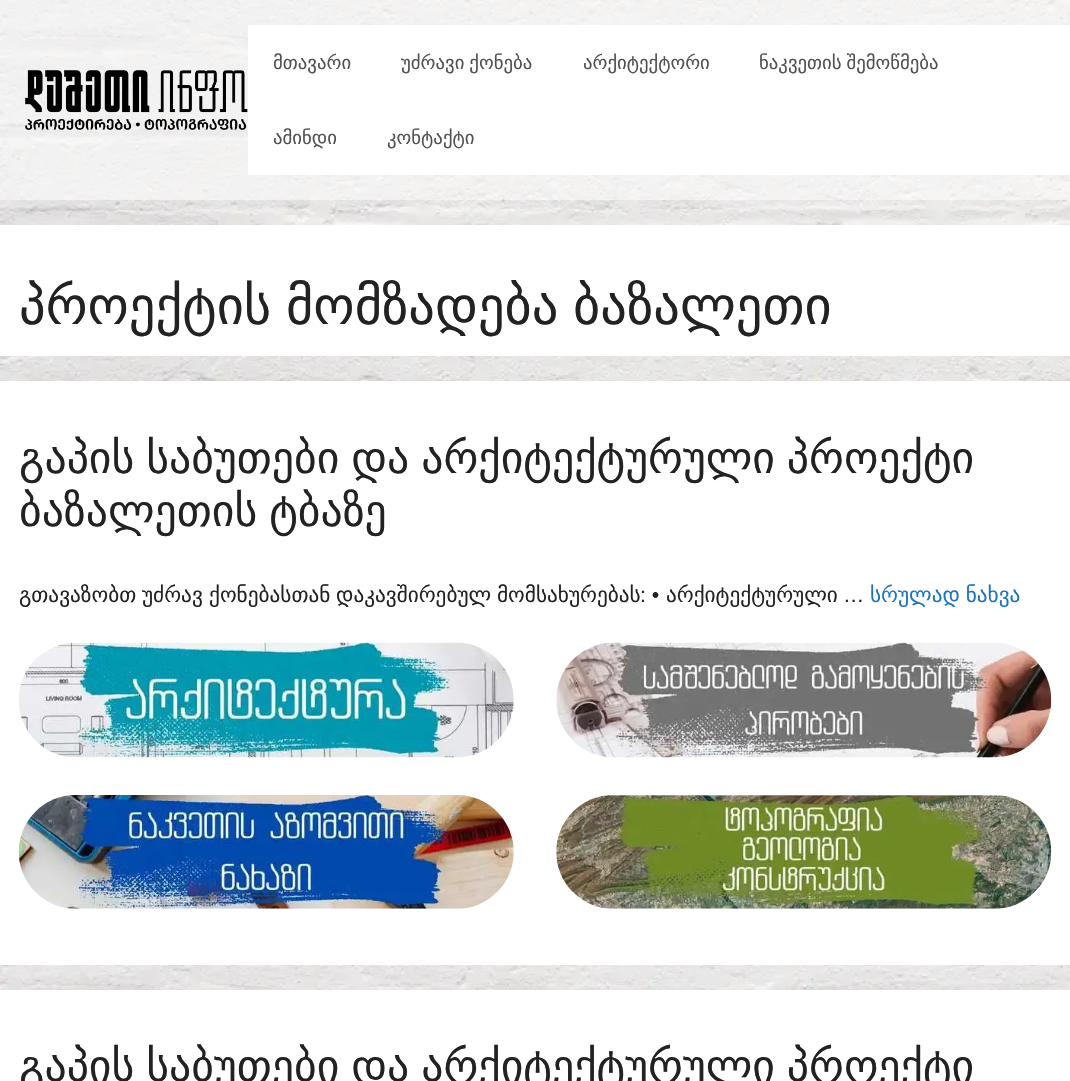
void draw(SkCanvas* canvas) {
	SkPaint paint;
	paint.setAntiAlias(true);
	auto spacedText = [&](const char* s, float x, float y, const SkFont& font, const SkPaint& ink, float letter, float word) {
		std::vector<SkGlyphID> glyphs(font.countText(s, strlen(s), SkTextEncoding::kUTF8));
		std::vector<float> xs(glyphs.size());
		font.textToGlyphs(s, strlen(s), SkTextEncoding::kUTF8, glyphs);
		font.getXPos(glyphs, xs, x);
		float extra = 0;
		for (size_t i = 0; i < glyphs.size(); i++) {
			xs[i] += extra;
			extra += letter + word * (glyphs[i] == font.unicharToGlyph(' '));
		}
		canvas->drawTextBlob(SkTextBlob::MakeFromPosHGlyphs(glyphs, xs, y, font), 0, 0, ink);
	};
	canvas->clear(0xffffffff);
	canvas->drawImageRect(SkImages::DeferredFromEncodedData(SkData::MakeFromFileName("img1.png")), SkRect::MakeXYWH(0, 0, 1070, 990), SkSamplingOptions());
	paint.setColor(0x80ffffff);
	canvas->drawRect(SkRect::MakeXYWH(0, 0, 1070, 200), paint);
	canvas->drawImageRect(SkImages::DeferredFromEncodedData(SkData::MakeFromFileName("img2.png")), SkRect::MakeXYWH(25, 70, 223, 60), SkSamplingOptions());
	paint.setColor(0xffffffff);
	canvas->drawRect(SkRect::MakeXYWH(248, 25, 822, 150), paint);
	SkFont f1(fontMgr->matchFamilyStyle("DejaVu Sans", SkFontStyle::Normal()), 18.75);
	f1.setSubpixel(true);
	paint.setColor(0xff515151);
	canvas->drawString("მთავარი", 273, 69, f1, paint);
	spacedText("უძრავი ქონება", 401, 69, f1, paint, 0, -1);
	canvas->drawString("არქიტექტორი", 583, 69, f1, paint);
	spacedText("ნაკვეთის შემოწმება", 759, 69, f1, paint, 0, -1);
	canvas->drawString("ამინდი", 273, 144, f1, paint);
	canvas->drawString("კონტაქტი", 387, 144, f1, paint);
	paint.setColor(0xffffffff);
	canvas->drawRect(SkRect::MakeXYWH(0, 225, 1070, 131), paint);
	SkFont f2(fontMgr->matchFamilyStyle("DejaVu Sans", SkFontStyle::Normal()), 52.5);
	f2.setSubpixel(true);
	paint.setColor(0xff222222);
	spacedText("პროექტის მომზადება ბაზალეთი", 19, 324, f2, paint, 0, -2);
	paint.setColor(0xffffffff);
	canvas->drawRect(SkRect::MakeXYWH(0, 381, 1070, 584), paint);
	SkFont f3(fontMgr->matchFamilyStyle("DejaVu Sans", SkFontStyle::Normal()), 43.75);
	f3.setSubpixel(true);
	paint.setColor(0xff222222);
	spacedText("გაპის საბუთები და არქიტექტურული პროექტი", 19, 473, f3, paint, 0, -2);
	spacedText("ბაზალეთის ტბაზე", 19, 526, f3, paint, 0, -2);
	SkFont f4(fontMgr->matchFamilyStyle("DejaVu Sans", SkFontStyle::Normal()), 21.25);
	f4.setSubpixel(true);
	canvas->drawString("გთავაზობთ", 19, 602, f4, paint);
	canvas->drawString("უძრავ", 142, 602, f4, paint);
	canvas->drawString("ქონებასთან", 209, 602, f4, paint);
	canvas->drawString("დაკავშირებულ", 336, 602, f4, paint);
	canvas->drawString("მომსახურებას", 497, 602, f4, paint);
	SkFont f5(fontMgr->matchFamilyStyle("Liberation Sans", SkFontStyle::Normal()), 21.25);
	f5.setSubpixel(true);
	canvas->drawString(": •", 640, 602, f5, paint);
	canvas->drawString("არქიტექტურული", 666, 602, f4, paint);
	canvas->drawString("…", 843, 602, f5, paint);
	paint.setColor(0xff1e73be);
	spacedText("სრულად ნახვა", 870, 602, f4, paint, 0, -1);
	canvas->drawImageRect(SkImages::DeferredFromEncodedData(SkData::MakeFromFileName("img3.png")), SkRect::MakeXYWH(19, 642, 495, 116), SkSamplingOptions());
	canvas->drawImageRect(SkImages::DeferredFromEncodedData(SkData::MakeFromFileName("img4.png")), SkRect::MakeXYWH(556, 642, 496, 116), SkSamplingOptions());
	canvas->drawImageRect(SkImages::DeferredFromEncodedData(SkData::MakeFromFileName("img5.png")), SkRect::MakeXYWH(18, 795, 496, 114), SkSamplingOptions());
	canvas->drawImageRect(SkImages::DeferredFromEncodedData(SkData::MakeFromFileName("img6.png")), SkRect::MakeXYWH(556, 795, 496, 114), SkSamplingOptions());
	paint.setColor(0xff222222);
	spacedText("გაპის საბუთები და არქიტექტურული პროექტი", 19, 1081, f3, paint, 0, -2);
}
